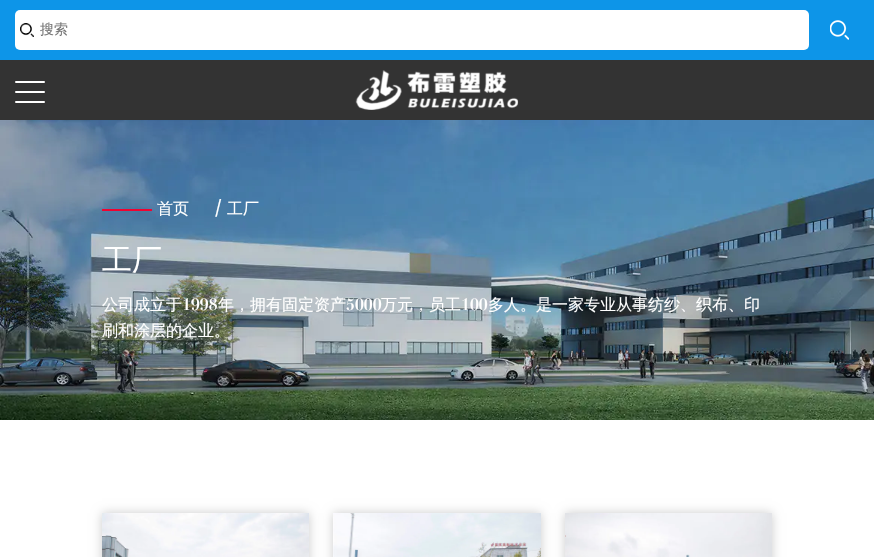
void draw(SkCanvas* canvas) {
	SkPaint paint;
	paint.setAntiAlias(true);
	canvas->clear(0xffffffff);
	paint.setColor(0xff0d95e8);
	canvas->drawRect(SkRect::MakeXYWH(0, 0, 874, 60), paint);
	paint.setColor(0xffffffff);
	canvas->drawRoundRect(SkRect::MakeXYWH(15, 10, 794, 40), 5, 5, paint);
	canvas->drawImageRect(SkImages::DeferredFromEncodedData(SkData::MakeFromFileName("img1.png")), SkRect::MakeXYWH(20, 23, 14, 14), SkSamplingOptions());
	SkFont f1(fontMgr->matchFamilyStyle("WenQuanYi Zen Hei", SkFontStyle(500, SkFontStyle::kNormal_Width, SkFontStyle::kUpright_Slant)), 14);
	f1.setSubpixel(true);
	paint.setColor(0xff757575);
	canvas->drawString("搜索", 40, 34, f1, paint);
	canvas->drawImageRect(SkImages::DeferredFromEncodedData(SkData::MakeFromFileName("img2.png")), SkRect::MakeXYWH(830, 20, 19, 20), SkSamplingOptions());
	paint.setColor(0xff333333);
	canvas->drawRect(SkRect::MakeXYWH(0, 60, 874, 60), paint);
	paint.setColor(0xffffffff);
	canvas->drawRoundRect(SkRect::MakeXYWH(15, 81, 30, 2), 1, 1, paint);
	canvas->drawRoundRect(SkRect::MakeXYWH(15, 91, 30, 2), 1, 1, paint);
	canvas->drawRoundRect(SkRect::MakeXYWH(15, 101, 30, 2), 1, 1, paint);
	canvas->drawImageRect(SkImages::DeferredFromEncodedData(SkData::MakeFromFileName("img3.png")), SkRect::MakeXYWH(355, 70, 164, 40), SkSamplingOptions());
	canvas->drawImageRect(SkImages::DeferredFromEncodedData(SkData::MakeFromFileName("img4.png")), SkRect::MakeXYWH(0, 120, 874, 300), SkSamplingOptions());
	paint.setColor(0xfff00331);
	canvas->drawRect(SkRect::MakeXYWH(102, 209, 50, 2), paint);
	SkFont f2(fontMgr->matchFamilyStyle("WenQuanYi Zen Hei", SkFontStyle(500, SkFontStyle::kNormal_Width, SkFontStyle::kUpright_Slant)), 16);
	f2.setSubpixel(true);
	paint.setColor(0xffffffff);
	canvas->drawString("首页", 157, 214, f2, paint);
	SkFont f3(fontMgr->matchFamilyStyle("Poppins", SkFontStyle::Normal()), 16);
	f3.setSubpixel(true);
	canvas->drawString("/", 214, 214, f3, paint);
	canvas->drawString("工厂", 227, 214, f2, paint);
	SkFont f4(fontMgr->matchFamilyStyle("WenQuanYi Zen Hei", SkFontStyle(500, SkFontStyle::kNormal_Width, SkFontStyle::kUpright_Slant)), 30);
	f4.setSubpixel(true);
	canvas->drawString("工厂", 102, 270, f4, paint);
	canvas->drawString("公司成立于", 102, 310, f2, paint);
	SkFont f5(fontMgr->matchFamilyStyle("Didot", SkFontStyle::Bold()), 16);
	f5.setSubpixel(true);
	canvas->drawString("1998", 182, 310, f5, paint);
	canvas->drawString("年，拥有固定资产", 218, 310, f2, paint);
	canvas->drawString("5000", 346, 310, f5, paint);
	canvas->drawString("万元，员工", 381, 310, f2, paint);
	canvas->drawString("100", 461, 310, f5, paint);
	canvas->drawString("多人。是一家专业从事纺纱、织布、印", 488, 310, f2, paint);
	canvas->drawString("刷和涂层的企业。", 102, 336, f2, paint);
	paint.setColor(0x33000000);
	paint.setMaskFilter(SkMaskFilter::MakeBlur(kNormal_SkBlurStyle, 5));
	canvas->drawRect(SkRect::MakeXYWH(102, 513, 207, 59), paint);
	paint.setMaskFilter(nullptr);
	canvas->drawImageRect(SkImages::DeferredFromEncodedData(SkData::MakeFromFileName("img5.png")), SkRect::MakeXYWH(102, 513, 207, 44), SkSamplingOptions());
	paint.setMaskFilter(SkMaskFilter::MakeBlur(kNormal_SkBlurStyle, 5));
	canvas->drawRect(SkRect::MakeXYWH(333, 513, 208, 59), paint);
	paint.setMaskFilter(nullptr);
	canvas->drawImageRect(SkImages::DeferredFromEncodedData(SkData::MakeFromFileName("img6.png")), SkRect::MakeXYWH(333, 513, 208, 44), SkSamplingOptions());
	paint.setMaskFilter(SkMaskFilter::MakeBlur(kNormal_SkBlurStyle, 5));
	canvas->drawRect(SkRect::MakeXYWH(565, 513, 207, 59), paint);
	paint.setMaskFilter(nullptr);
	canvas->drawImageRect(SkImages::DeferredFromEncodedData(SkData::MakeFromFileName("img7.png")), SkRect::MakeXYWH(565, 513, 207, 44), SkSamplingOptions());
}
